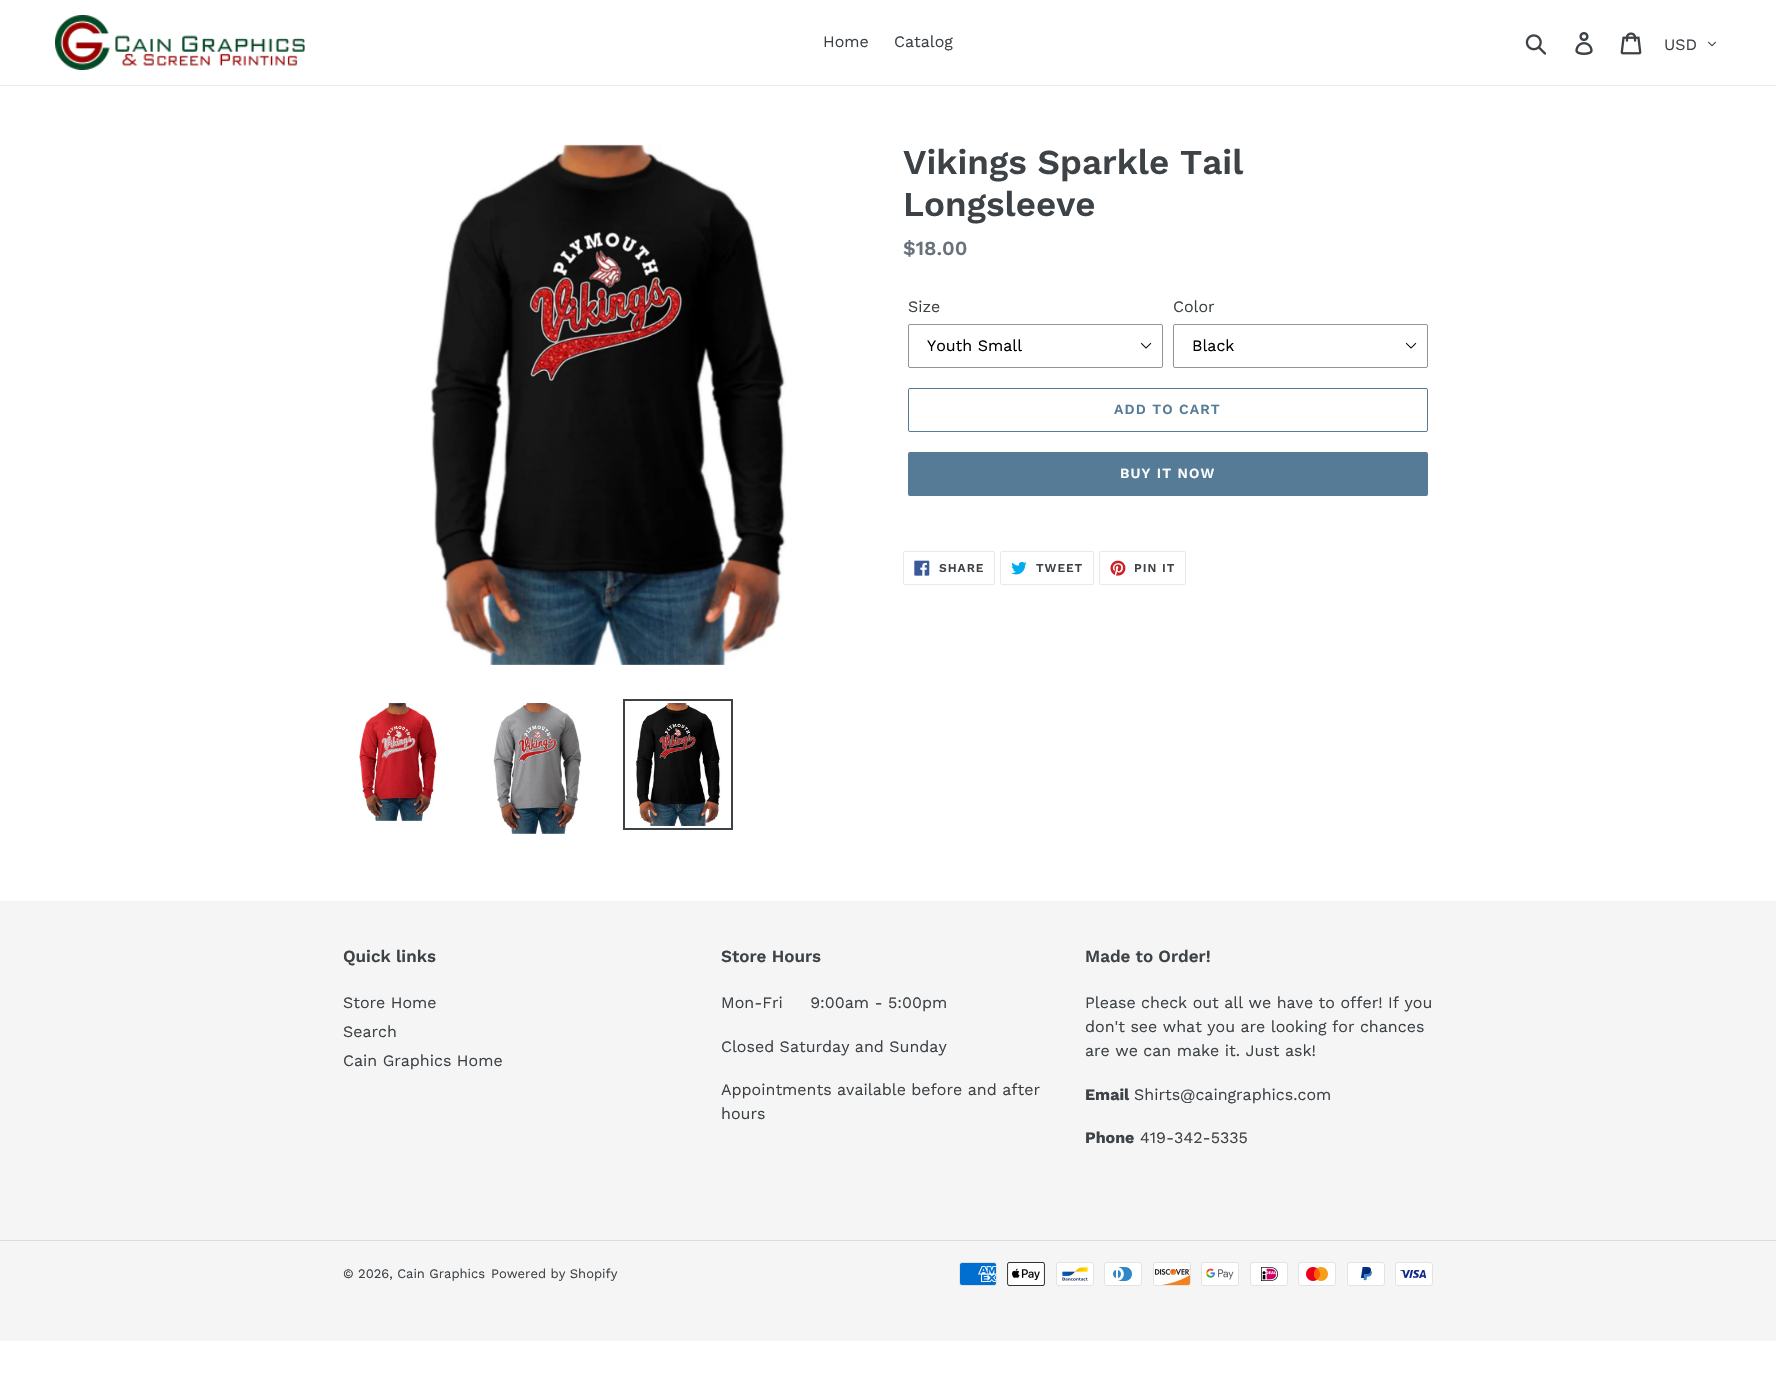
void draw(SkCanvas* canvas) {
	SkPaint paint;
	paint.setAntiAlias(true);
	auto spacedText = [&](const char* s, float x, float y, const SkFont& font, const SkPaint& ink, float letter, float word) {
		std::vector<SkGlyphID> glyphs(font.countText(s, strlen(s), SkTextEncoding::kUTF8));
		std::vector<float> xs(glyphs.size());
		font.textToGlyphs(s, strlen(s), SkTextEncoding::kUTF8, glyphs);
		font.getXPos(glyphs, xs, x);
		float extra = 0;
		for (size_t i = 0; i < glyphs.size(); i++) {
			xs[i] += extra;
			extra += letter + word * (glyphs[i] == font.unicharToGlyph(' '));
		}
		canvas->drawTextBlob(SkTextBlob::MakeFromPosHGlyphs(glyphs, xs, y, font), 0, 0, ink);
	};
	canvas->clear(0xffffffff);
	paint.setColor(0xffe8e9eb);
	canvas->drawRect(SkRect::MakeXYWH(0, 85, 1776, 1), paint);
	canvas->drawImageRect(SkImages::DeferredFromEncodedData(SkData::MakeFromFileName("img1.png")), SkRect::MakeXYWH(55, 15, 250, 55), SkSamplingOptions());
	SkFont f1(fontMgr->matchFamilyStyle("Work Sans", SkFontStyle::Normal()), 16);
	f1.setSubpixel(true);
	paint.setColor(0xff3d4246);
	canvas->drawString("Home", 823, 47, f1, paint);
	canvas->drawString("Catalog", 894, 47, f1, paint);
	canvas->drawImageRect(SkImages::DeferredFromEncodedData(SkData::MakeFromFileName("img2.png")), SkRect::MakeXYWH(1525, 34, 22, 21), SkSamplingOptions());
	canvas->drawImageRect(SkImages::DeferredFromEncodedData(SkData::MakeFromFileName("img3.png")), SkRect::MakeXYWH(1575, 32, 18, 23), SkSamplingOptions());
	canvas->drawImageRect(SkImages::DeferredFromEncodedData(SkData::MakeFromFileName("img4.png")), SkRect::MakeXYWH(1620, 32, 22, 23), SkSamplingOptions());
	canvas->drawString("USD", 1664, 50, f1, paint);
	canvas->drawImageRect(SkImages::DeferredFromEncodedData(SkData::MakeFromFileName("img5.png")), SkRect::MakeXYWH(1708, 41, 8, 6), SkSamplingOptions());
	canvas->drawImageRect(SkImages::DeferredFromEncodedData(SkData::MakeFromFileName("img6.png")), SkRect::MakeXYWH(430, 144, 356, 521), SkSamplingOptions());
	canvas->drawImageRect(SkImages::DeferredFromEncodedData(SkData::MakeFromFileName("img7.png")), SkRect::MakeXYWH(358, 703, 80, 118), SkSamplingOptions());
	canvas->drawImageRect(SkImages::DeferredFromEncodedData(SkData::MakeFromFileName("img8.png")), SkRect::MakeXYWH(493, 703, 89, 131), SkSamplingOptions());
	paint.setStroke(true);
	paint.setStrokeWidth(2);
	canvas->drawRect(SkRect::MakeXYWH(624, 700, 108, 129), paint);
	canvas->drawImageRect(SkImages::DeferredFromEncodedData(SkData::MakeFromFileName("img9.png")), SkRect::MakeXYWH(636, 703, 85, 123), SkSamplingOptions());
	SkFont f2(fontMgr->matchFamilyStyle("Work Sans", SkFontStyle(600, SkFontStyle::kNormal_Width, SkFontStyle::kUpright_Slant)), 35);
	f2.setSubpixel(true);
	paint.setStroke(false);
	canvas->drawString("Vikings Sparkle Tail", 903, 174, f2, paint);
	canvas->drawString("Longsleeve", 903, 216, f2, paint);
	SkFont f3(fontMgr->matchFamilyStyle("Work Sans", SkFontStyle(600, SkFontStyle::kNormal_Width, SkFontStyle::kUpright_Slant)), 20);
	f3.setSubpixel(true);
	paint.setColor(0xff69727b);
	canvas->drawString("$18.00", 903, 255, f3, paint);
	paint.setColor(0xff3d4246);
	canvas->drawString("Size", 908, 312, f1, paint);
	canvas->drawImageRect(SkImages::DeferredFromEncodedData(SkData::MakeFromFileName("img10.png")), SkRect::MakeXYWH(1140, 342, 12, 7), SkSamplingOptions());
	paint.setStroke(true);
	paint.setStrokeWidth(1);
	paint.setColor(0xff949494);
	canvas->drawRoundRect(SkRect::MakeXYWH(908.5, 324.5, 254, 43), 1.5, 1.5, paint);
	paint.setStroke(false);
	paint.setColor(0xff000000);
	canvas->drawString("Youth Small", 927, 351, f1, paint);
	paint.setColor(0xff3d4246);
	canvas->drawString("Color", 1173, 312, f1, paint);
	canvas->drawImageRect(SkImages::DeferredFromEncodedData(SkData::MakeFromFileName("img10.png")), SkRect::MakeXYWH(1405, 342, 12, 7), SkSamplingOptions());
	paint.setStroke(true);
	paint.setColor(0xff949494);
	canvas->drawRoundRect(SkRect::MakeXYWH(1173.5, 324.5, 254, 43), 1.5, 1.5, paint);
	paint.setStroke(false);
	paint.setColor(0xff000000);
	canvas->drawString("Black", 1192, 351, f1, paint);
	paint.setStroke(true);
	paint.setColor(0xff557b97);
	canvas->drawRoundRect(SkRect::MakeXYWH(908.5, 388.5, 519, 43), 1.5, 1.5, paint);
	SkFont f4(fontMgr->matchFamilyStyle("Work Sans", SkFontStyle(600, SkFontStyle::kNormal_Width, SkFontStyle::kUpright_Slant)), 14);
	f4.setSubpixel(true);
	paint.setStroke(false);
	spacedText("ADD TO CART", 1114, 414, f4, paint, 1.1, 0);
	canvas->drawRoundRect(SkRect::MakeXYWH(908, 452, 520, 44), 2, 2, paint);
	paint.setColor(0xffffffff);
	spacedText("BUY IT NOW", 1120, 478, f4, paint, 1.1, 0);
	paint.setStroke(true);
	paint.setColor(0xffe8e9eb);
	canvas->drawRoundRect(SkRect::MakeXYWH(903.5, 551.5, 91, 33), 1.5, 1.5, paint);
	canvas->drawImageRect(SkImages::DeferredFromEncodedData(SkData::MakeFromFileName("img11.png")), SkRect::MakeXYWH(914, 560, 16, 16), SkSamplingOptions());
	SkFont f5(fontMgr->matchFamilyStyle("Work Sans", SkFontStyle(600, SkFontStyle::kNormal_Width, SkFontStyle::kUpright_Slant)), 12);
	f5.setSubpixel(true);
	paint.setStroke(false);
	paint.setColor(0xff3d4246);
	spacedText("SHARE", 939, 572, f5, paint, 1, 0);
	paint.setStroke(true);
	paint.setColor(0xffe8e9eb);
	canvas->drawRoundRect(SkRect::MakeXYWH(1000.5, 551.5, 93, 33), 1.5, 1.5, paint);
	canvas->drawImageRect(SkImages::DeferredFromEncodedData(SkData::MakeFromFileName("img12.png")), SkRect::MakeXYWH(1011, 561, 16, 14), SkSamplingOptions());
	paint.setStroke(false);
	paint.setColor(0xff3d4246);
	spacedText("TWEET", 1036, 572, f5, paint, 1, 0);
	paint.setStroke(true);
	paint.setColor(0xffe8e9eb);
	canvas->drawRoundRect(SkRect::MakeXYWH(1099.5, 551.5, 86, 33), 1.5, 1.5, paint);
	canvas->drawImageRect(SkImages::DeferredFromEncodedData(SkData::MakeFromFileName("img13.png")), SkRect::MakeXYWH(1110, 560, 16, 16), SkSamplingOptions());
	paint.setStroke(false);
	paint.setColor(0xff3d4246);
	spacedText("PIN IT", 1134, 572, f5, paint, 1, 0);
	paint.setColor(0xfff5f5f5);
	canvas->drawRect(SkRect::MakeXYWH(0, 901, 1776, 440), paint);
	SkFont f6(fontMgr->matchFamilyStyle("Work Sans", SkFontStyle(600, SkFontStyle::kNormal_Width, SkFontStyle::kUpright_Slant)), 17);
	f6.setSubpixel(true);
	paint.setColor(0xff3d4246);
	canvas->drawString("Quick links", 343, 962, f6, paint);
	canvas->drawString("Store Home", 343, 1008, f1, paint);
	canvas->drawString("Search", 343, 1037, f1, paint);
	canvas->drawString("Cain Graphics Home", 343, 1066, f1, paint);
	canvas->drawString("Store Hours", 721, 962, f6, paint);
	canvas->drawString("Mon-Fri     9:00am - 5:00pm", 721, 1008, f1, paint);
	canvas->drawString("Closed Saturday and Sunday", 721, 1052, f1, paint);
	canvas->drawString("Appointments available before and after", 721, 1095, f1, paint);
	canvas->drawString("hours", 721, 1119, f1, paint);
	canvas->drawString("Made to Order!", 1085, 962, f6, paint);
	canvas->drawString("Please check out all we have to offer! If you", 1085, 1008, f1, paint);
	canvas->drawString("don't see what you are looking for chances", 1085, 1032, f1, paint);
	canvas->drawString("are we can make it. Just ask!", 1085, 1056, f1, paint);
	SkFont f7(fontMgr->matchFamilyStyle("Work Sans", SkFontStyle::Bold()), 16);
	f7.setSubpixel(true);
	canvas->drawString("Email", 1085, 1100, f7, paint);
	canvas->drawString("Shirts@caingraphics.com", 1134, 1100, f1, paint);
	canvas->drawString("Phone", 1085, 1143, f7, paint);
	canvas->drawString("419-342-5335", 1140, 1143, f1, paint);
	paint.setColor(0xffdcdcdc);
	canvas->drawRect(SkRect::MakeXYWH(0, 1240, 1776, 1), paint);
	SkFont f8(fontMgr->matchFamilyStyle("Work Sans", SkFontStyle::Normal()), 13);
	f8.setSubpixel(true);
	paint.setColor(0xff3d4246);
	canvas->drawString("© 2026, Cain Graphics", 343, 1278, f8, paint);
	canvas->drawString("Powered by Shopify", 491, 1278, f8, paint);
	canvas->drawImageRect(SkImages::DeferredFromEncodedData(SkData::MakeFromFileName("img14.png")), SkRect::MakeXYWH(959, 1262, 38, 24), SkSamplingOptions());
	canvas->drawImageRect(SkImages::DeferredFromEncodedData(SkData::MakeFromFileName("img15.png")), SkRect::MakeXYWH(1007, 1262, 38, 24), SkSamplingOptions());
	canvas->drawImageRect(SkImages::DeferredFromEncodedData(SkData::MakeFromFileName("img16.png")), SkRect::MakeXYWH(1056, 1262, 38, 24), SkSamplingOptions());
	canvas->drawImageRect(SkImages::DeferredFromEncodedData(SkData::MakeFromFileName("img17.png")), SkRect::MakeXYWH(1104, 1262, 38, 24), SkSamplingOptions());
	canvas->drawImageRect(SkImages::DeferredFromEncodedData(SkData::MakeFromFileName("img18.png")), SkRect::MakeXYWH(1153, 1262, 38, 24), SkSamplingOptions());
	canvas->drawImageRect(SkImages::DeferredFromEncodedData(SkData::MakeFromFileName("img19.png")), SkRect::MakeXYWH(1201, 1262, 38, 24), SkSamplingOptions());
	canvas->drawImageRect(SkImages::DeferredFromEncodedData(SkData::MakeFromFileName("img20.png")), SkRect::MakeXYWH(1250, 1262, 38, 24), SkSamplingOptions());
	canvas->drawImageRect(SkImages::DeferredFromEncodedData(SkData::MakeFromFileName("img21.png")), SkRect::MakeXYWH(1298, 1262, 38, 24), SkSamplingOptions());
	canvas->drawImageRect(SkImages::DeferredFromEncodedData(SkData::MakeFromFileName("img22.png")), SkRect::MakeXYWH(1347, 1262, 38, 24), SkSamplingOptions());
	canvas->drawImageRect(SkImages::DeferredFromEncodedData(SkData::MakeFromFileName("img23.png")), SkRect::MakeXYWH(1395, 1262, 38, 24), SkSamplingOptions());
}
